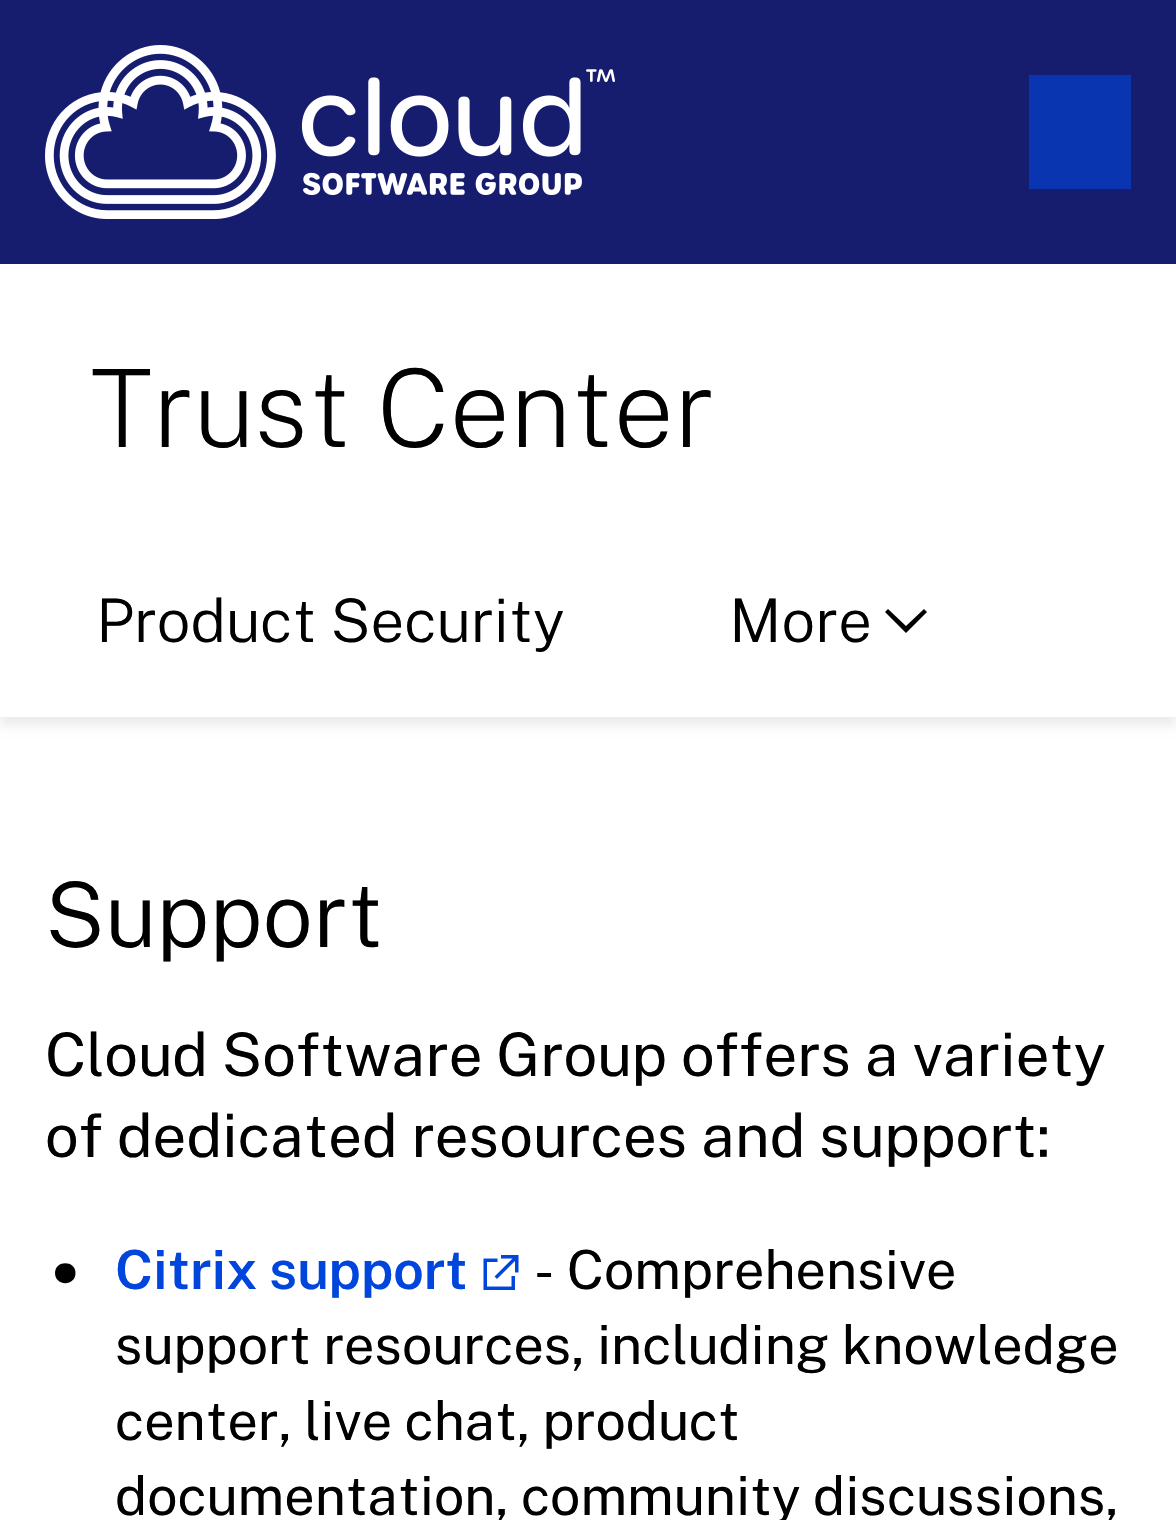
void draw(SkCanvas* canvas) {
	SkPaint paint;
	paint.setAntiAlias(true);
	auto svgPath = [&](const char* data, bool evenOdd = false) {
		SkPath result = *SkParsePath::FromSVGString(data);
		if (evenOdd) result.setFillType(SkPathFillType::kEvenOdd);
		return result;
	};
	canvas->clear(0xff161d6f);
	canvas->drawImageRect(SkImages::DeferredFromEncodedData(SkData::MakeFromFileName("img1.png")), SkRect::MakeXYWH(45, 45, 570, 174), SkSamplingOptions());
	paint.setColor(0xff0936b0);
	canvas->drawRect(SkRect::MakeXYWH(1029, 75, 102, 114), paint);
	paint.setColor(0xffffffff);
	canvas->drawRect(SkRect::MakeXYWH(0, 264, 1176, 261), paint);
	SkFont f1(fontMgr->matchFamilyStyle("Public Sans", SkFontStyle(100, SkFontStyle::kNormal_Width, SkFontStyle::kUpright_Slant)), 108);
	f1.setSubpixel(true);
	paint.setColor(0xff000000);
	canvas->drawString("Trust Center", 90, 447, f1, paint);
	paint.setColor(0xffffffff);
	canvas->drawRect(SkRect::MakeXYWH(0, 717, 1176, 803), paint);
	paint.setColor(0x12000000);
	paint.setMaskFilter(SkMaskFilter::MakeBlur(kNormal_SkBlurStyle, 4.5));
	canvas->drawRect(SkRect::MakeXYWH(0, 534, 1176, 192), paint);
	paint.setMaskFilter(nullptr);
	paint.setColor(0xffffffff);
	canvas->drawRect(SkRect::MakeXYWH(0, 525, 1176, 192), paint);
	SkFont f2(fontMgr->matchFamilyStyle("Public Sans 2", SkFontStyle(100, SkFontStyle::kNormal_Width, SkFontStyle::kUpright_Slant)), 60);
	f2.setSubpixel(true);
	paint.setColor(0xff000000);
	canvas->drawString("Product Security", 96, 642, f2, paint);
	canvas->drawString("More", 729, 642, f2, paint);
	canvas->drawPath(svgPath("M906 633L927 612L924 609L906 626L888 609L885 612Z"), paint);
	SkFont f3(fontMgr->matchFamilyStyle("Public Sans 2", SkFontStyle(100, SkFontStyle::kNormal_Width, SkFontStyle::kUpright_Slant)), 90);
	f3.setSubpixel(true);
	canvas->drawString("Support", 45, 947, f3, paint);
	SkFont f4(fontMgr->matchFamilyStyle("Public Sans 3", SkFontStyle(100, SkFontStyle::kNormal_Width, SkFontStyle::kUpright_Slant)), 60);
	f4.setSubpixel(true);
	canvas->drawString("Cloud Software Group offers a variety", 45, 1076, f4, paint);
	canvas->drawString("of dedicated resources and support:", 45, 1157, f4, paint);
	canvas->drawPath(svgPath("M75.5 1273C75.5 1286.5 55 1286.5 55 1273C55 1260 75.5 1260 75.5 1273Z"), paint);
	SkFont f5(fontMgr->matchFamilyStyle("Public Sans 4", SkFontStyle(100, SkFontStyle::kNormal_Width, SkFontStyle::kUpright_Slant)), 54);
	f5.setSubpixel(true);
	paint.setColor(0xff0046dc);
	canvas->drawString("Citrix support", 115, 1289, f5, paint);
	canvas->drawImageRect(SkImages::DeferredFromEncodedData(SkData::MakeFromFileName("img2.png")), SkRect::MakeXYWH(483, 1255, 36, 35), SkSamplingOptions());
	SkFont f6(fontMgr->matchFamilyStyle("Public Sans 3", SkFontStyle(100, SkFontStyle::kNormal_Width, SkFontStyle::kUpright_Slant)), 54);
	f6.setSubpixel(true);
	paint.setColor(0xff000000);
	canvas->drawString("- Comprehensive", 534, 1289, f6, paint);
	canvas->drawString("support resources, including knowledge", 115, 1364, f6, paint);
	canvas->drawString("center, live chat, product", 115, 1440, f6, paint);
	canvas->drawString("documentation, community discussions,", 115, 1515, f6, paint);
}
